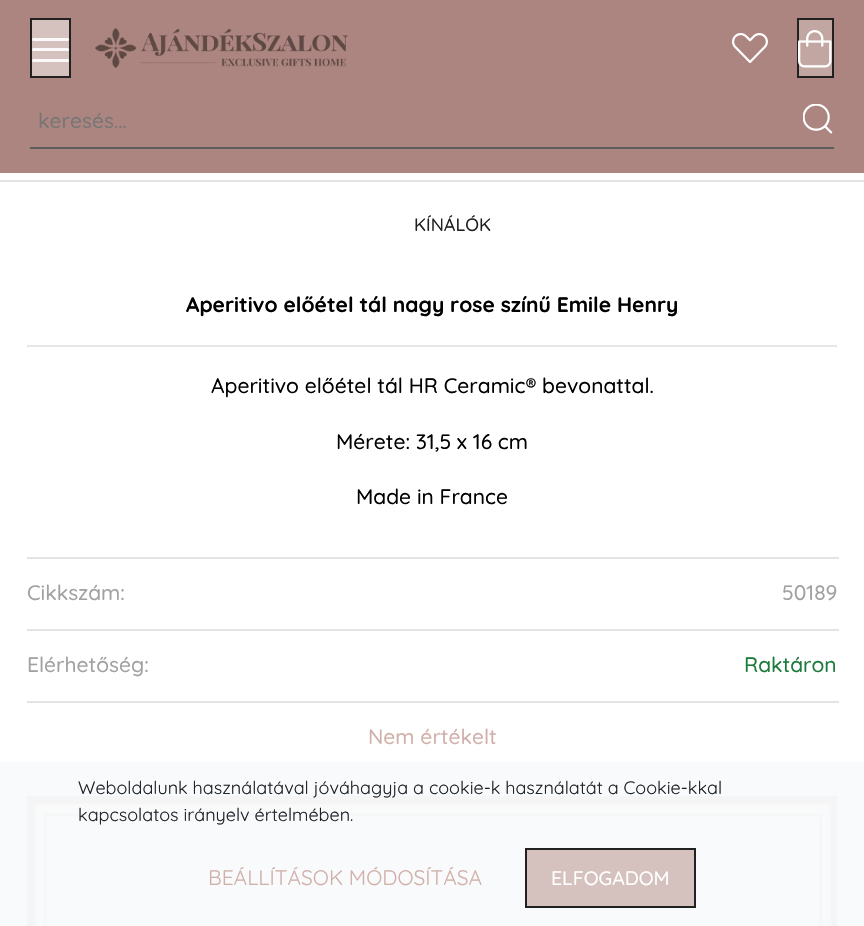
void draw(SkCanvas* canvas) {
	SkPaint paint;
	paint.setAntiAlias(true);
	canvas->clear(0xffffffff);
	paint.setColor(0xfff9fafb);
	canvas->drawRect(SkRect::MakeXYWH(0, 762, 864, 164), paint);
	paint.setColor(0xffad8580);
	canvas->drawRect(SkRect::MakeXYWH(0, 0, 864, 173), paint);
	paint.setColor(0xffd5c1be);
	canvas->drawRect(SkRect::MakeXYWH(31, 19, 39, 58), paint);
	paint.setStroke(true);
	paint.setStrokeWidth(2);
	paint.setColor(0xff212121);
	canvas->drawRect(SkRect::MakeXYWH(31, 19, 39, 58), paint);
	paint.setStroke(false);
	paint.setColor(0xfffbf9f9);
	canvas->drawRoundRect(SkRect::MakeXYWH(32, 38, 37, 3), 1.5, 1.5, paint);
	canvas->drawRoundRect(SkRect::MakeXYWH(32, 48, 37, 3), 1.5, 1.5, paint);
	canvas->drawRoundRect(SkRect::MakeXYWH(32, 59, 37, 3), 1.5, 1.5, paint);
	canvas->drawImageRect(SkImages::DeferredFromEncodedData(SkData::MakeFromFileName("img1.png")), SkRect::MakeXYWH(95, 28, 253, 40), SkSamplingOptions());
	canvas->drawImageRect(SkImages::DeferredFromEncodedData(SkData::MakeFromFileName("img2.png")), SkRect::MakeXYWH(732, 33, 36, 30), SkSamplingOptions());
	paint.setColor(0xffc1a6a2);
	canvas->drawRect(SkRect::MakeXYWH(798, 19, 35, 58), paint);
	paint.setStroke(true);
	paint.setColor(0xff212121);
	canvas->drawRect(SkRect::MakeXYWH(798, 19, 35, 58), paint);
	canvas->drawImageRect(SkImages::DeferredFromEncodedData(SkData::MakeFromFileName("img3.png")), SkRect::MakeXYWH(798, 30, 34, 38), SkSamplingOptions());
	paint.setStroke(false);
	paint.setColor(0xff5c5c5c);
	canvas->drawRect(SkRect::MakeXYWH(30, 147, 804, 2), paint);
	SkFont f1(fontMgr->matchFamilyStyle("Quicksand", SkFontStyle(500, SkFontStyle::kNormal_Width, SkFontStyle::kUpright_Slant)), 21);
	f1.setSubpixel(true);
	paint.setColor(0xff767676);
	canvas->drawString("keresés...", 38, 128, f1, paint);
	canvas->drawImageRect(SkImages::DeferredFromEncodedData(SkData::MakeFromFileName("img4.png")), SkRect::MakeXYWH(803, 104, 30, 30), SkSamplingOptions());
	paint.setColor(0xffe3e3e3);
	canvas->drawRect(SkRect::MakeXYWH(0, 180, 864, 2), paint);
	SkFont f2(fontMgr->matchFamilyStyle("Quicksand", SkFontStyle(500, SkFontStyle::kNormal_Width, SkFontStyle::kUpright_Slant)), 18);
	f2.setSubpixel(true);
	paint.setColor(0xff212121);
	canvas->drawString("KÍNÁLÓK", 414, 231, f2, paint);
	SkFont f3(fontMgr->matchFamilyStyle("Quicksand", SkFontStyle::Bold()), 21);
	f3.setSubpixel(true);
	paint.setColor(0xff000000);
	canvas->drawString("Aperitivo előétel tál nagy rose színű Emile Henry", 186, 312, f3, paint);
	paint.setColor(0xffe6e6e6);
	canvas->drawRect(SkRect::MakeXYWH(27, 345, 810, 2), paint);
	paint.setColor(0xff000000);
	canvas->drawString("Aperitivo előétel tál HR Ceramic® bevonattal.", 211, 393, f1, paint);
	canvas->drawString("Mérete: 31,5 x 16 cm", 336, 449, f1, paint);
	canvas->drawString("Made in France", 356, 504, f1, paint);
	paint.setColor(0xffa1a1a1);
	canvas->drawString("Cikkszám:", 27, 600, f1, paint);
	paint.setColor(0xffe4e4e4);
	canvas->drawRect(SkRect::MakeXYWH(27, 557, 812, 2), paint);
	paint.setColor(0xffa1a1a1);
	canvas->drawString("50189", 782, 600, f1, paint);
	canvas->drawString("Elérhetőség:", 27, 672, f1, paint);
	paint.setColor(0xffe4e4e4);
	canvas->drawRect(SkRect::MakeXYWH(27, 629, 812, 2), paint);
	paint.setColor(0xff1c7a3b);
	canvas->drawString("Raktáron", 744, 672, f1, paint);
	paint.setColor(0xffe4e4e4);
	canvas->drawRect(SkRect::MakeXYWH(27, 701, 812, 2), paint);
	paint.setColor(0xffd1b0aa);
	canvas->drawString("Nem értékelt", 368, 744, f1, paint);
	canvas->drawImageRect(SkImages::DeferredFromEncodedData(SkData::MakeFromFileName("img5.png")), SkRect::MakeXYWH(27, 796, 810, 130), SkSamplingOptions());
	SkFont f4(fontMgr->matchFamilyStyle("Quicksand", SkFontStyle::Normal()), 18);
	f4.setSubpixel(true);
	paint.setColor(0xff212529);
	canvas->drawString("Weboldalunk használatával jóváhagyja a cookie-k használatát a Cookie-kkal", 78, 794, f4, paint);
	canvas->drawString("kapcsolatos irányelv értelmében.", 78, 821, f4, paint);
	SkFont f5(fontMgr->matchFamilyStyle("Quicksand", SkFontStyle::Normal()), 21);
	f5.setSubpixel(true);
	paint.setColor(0xffd1b0aa);
	canvas->drawString("BEÁLLÍTÁSOK MÓDOSÍTÁSA", 208, 885, f5, paint);
	paint.setColor(0xffd5c1be);
	canvas->drawRect(SkRect::MakeXYWH(526, 849, 169, 58), paint);
	paint.setStroke(true);
	paint.setColor(0xff212121);
	canvas->drawRect(SkRect::MakeXYWH(526, 849, 169, 58), paint);
	SkFont f6(fontMgr->matchFamilyStyle("Quicksand", SkFontStyle(500, SkFontStyle::kNormal_Width, SkFontStyle::kUpright_Slant)), 19.5);
	f6.setSubpixel(true);
	paint.setStroke(false);
	paint.setColor(0xffffffff);
	canvas->drawString("ELFOGADOM", 551, 885, f6, paint);
}
